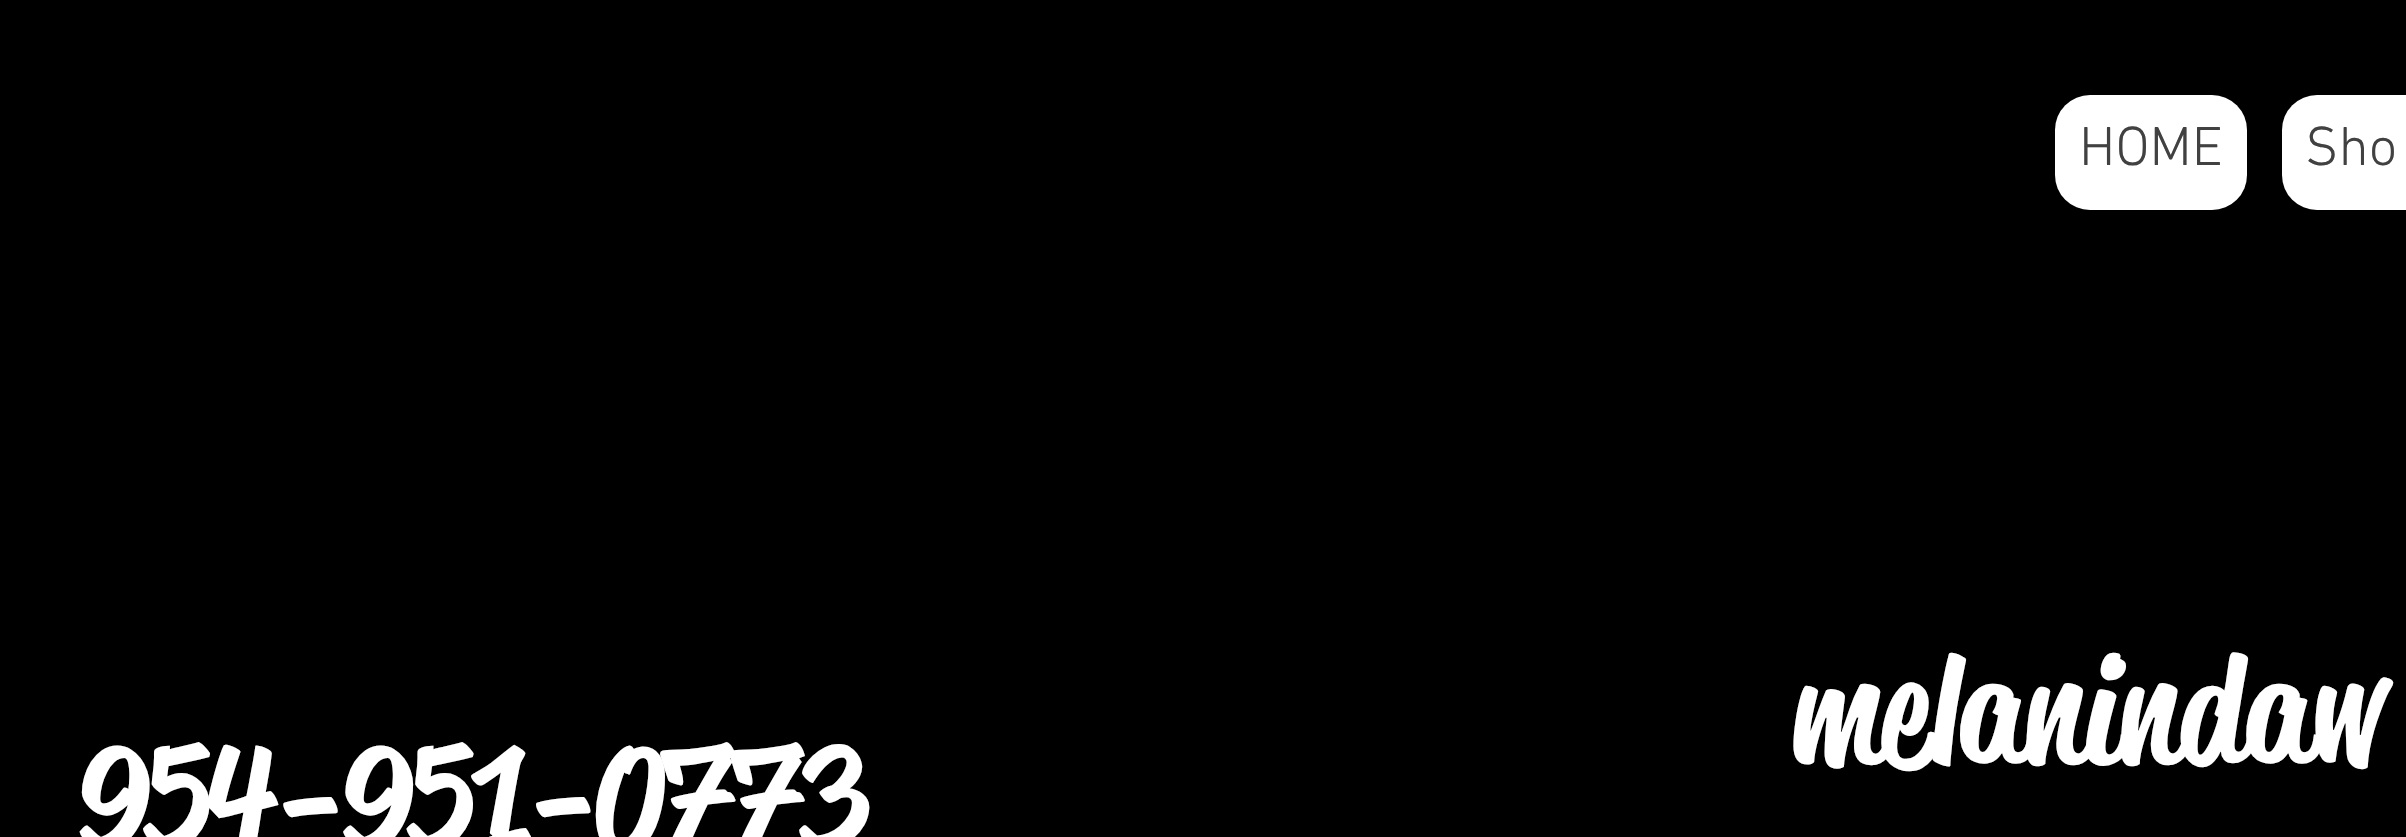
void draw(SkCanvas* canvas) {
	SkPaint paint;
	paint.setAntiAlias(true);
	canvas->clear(0xff000000);
	paint.setColor(0xffffffff);
	canvas->drawRoundRect(SkRect::MakeXYWH(2055, 95, 192, 115), 35, 35, paint);
	SkFont f1(fontMgr->matchFamilyStyle("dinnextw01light", SkFontStyle(300, SkFontStyle::kNormal_Width, SkFontStyle::kUpright_Slant)), 56);
	f1.setSubpixel(true);
	paint.setColor(0xff414141);
	canvas->drawString("HOME", 2079, 165, f1, paint);
	paint.setColor(0xffffffff);
	canvas->drawRoundRect(SkRect::MakeXYWH(2282, 95, 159, 115), 35, 35, paint);
	paint.setColor(0xff414141);
	canvas->drawString("Sho", 2305, 165, f1, paint);
	SkFont f2(fontMgr->matchFamilyStyle("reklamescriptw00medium", SkFontStyle(500, SkFontStyle::kNormal_Width, SkFontStyle::kUpright_Slant)), 143.5);
	f2.setSubpixel(true);
	paint.setColor(0xffffffff);
	canvas->drawString("melanindaw", 1792, 760, f2, paint);
	canvas->drawString("954-951-0773", 81, 847, f2, paint);
}
